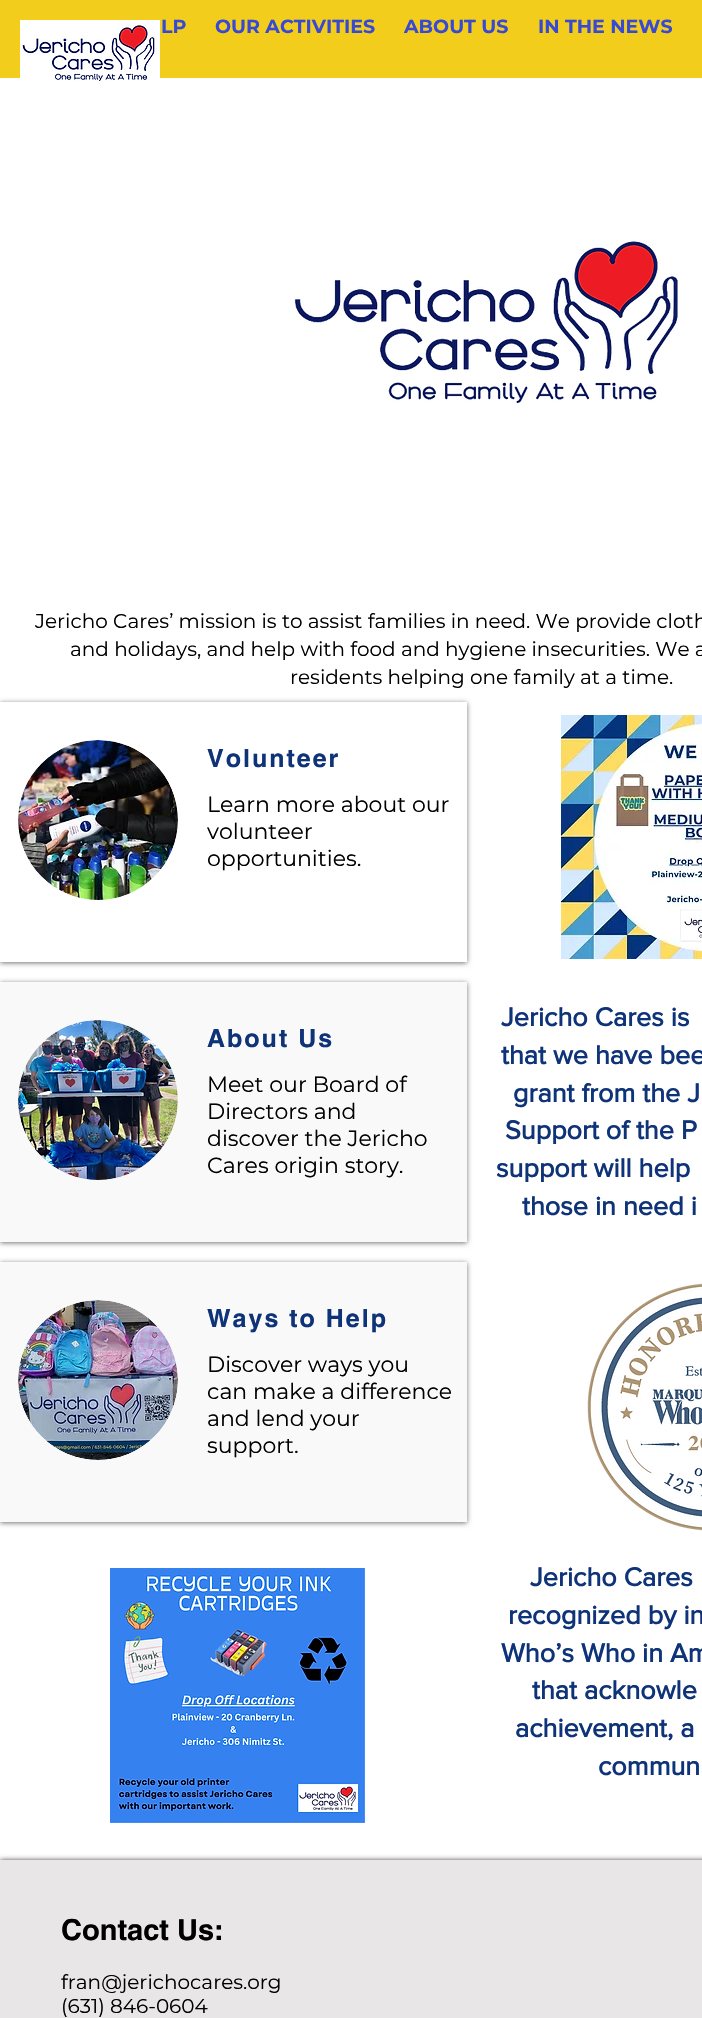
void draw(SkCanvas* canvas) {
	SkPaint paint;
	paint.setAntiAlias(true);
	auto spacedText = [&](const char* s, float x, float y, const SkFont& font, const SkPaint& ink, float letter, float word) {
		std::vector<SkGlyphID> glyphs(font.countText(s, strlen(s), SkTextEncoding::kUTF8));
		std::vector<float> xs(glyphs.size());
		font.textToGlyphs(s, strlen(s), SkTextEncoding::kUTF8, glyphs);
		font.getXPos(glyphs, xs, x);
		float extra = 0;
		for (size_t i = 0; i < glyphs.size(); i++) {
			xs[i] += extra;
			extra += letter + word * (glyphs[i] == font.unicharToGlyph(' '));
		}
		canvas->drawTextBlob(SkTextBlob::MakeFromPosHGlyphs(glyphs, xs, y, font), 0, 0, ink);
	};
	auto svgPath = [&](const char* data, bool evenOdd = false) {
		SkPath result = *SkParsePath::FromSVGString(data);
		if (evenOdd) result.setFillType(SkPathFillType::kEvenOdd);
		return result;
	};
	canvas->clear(0xffffffff);
	paint.setColor(0xfff2cd1b);
	canvas->drawRect(SkRect::MakeXYWH(0, 0, 702, 78), paint);
	SkFont f1(fontMgr->matchFamilyStyle("Montserrat", SkFontStyle::Bold()), 19);
	f1.setSubpixel(true);
	paint.setColor(0xff384ad3);
	canvas->drawString("LP", 161, 33, f1, paint);
	canvas->drawString("OUR ACTIVITIES", 215, 33, f1, paint);
	canvas->drawString("ABOUT US", 404, 33, f1, paint);
	canvas->drawString("IN THE NEWS", 538, 33, f1, paint);
	canvas->drawImageRect(SkImages::DeferredFromEncodedData(SkData::MakeFromFileName("img1.png")), SkRect::MakeXYWH(20, 20, 140, 61), SkSamplingOptions());
	canvas->drawImageRect(SkImages::DeferredFromEncodedData(SkData::MakeFromFileName("img2.png")), SkRect::MakeXYWH(294, 241, 384, 163), SkSamplingOptions());
	SkFont f2(fontMgr->matchFamilyStyle("Montserrat", SkFontStyle::Normal()), 20);
	f2.setSubpixel(true);
	paint.setColor(0xff000000);
	canvas->drawString("Jericho Cares’ mission is to assist families in need. We provide cloth", 35, 628, f2, paint);
	canvas->drawString("and holidays, and help with food and hygiene insecurities. We a", 70, 656, f2, paint);
	canvas->drawString("residents helping one family at a time.", 290, 684, f2, paint);
	canvas->save();
	canvas->clipPath(svgPath("M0 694H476V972H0ZM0 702H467V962H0Z", true), true);
	paint.setColor(0x8c000000);
	paint.setMaskFilter(SkMaskFilter::MakeBlur(kNormal_SkBlurStyle, 2.5));
	canvas->drawRect(SkRect::MakeXYWH(0, 703, 467, 260), paint);
	paint.setMaskFilter(nullptr);
	canvas->restore();
	canvas->drawImageRect(SkImages::DeferredFromEncodedData(SkData::MakeFromFileName("img3.png")), SkRect::MakeXYWH(18, 740, 160, 160), SkSamplingOptions());
	SkFont f3(fontMgr->matchFamilyStyle("helvetica", SkFontStyle::Bold()), 25);
	f3.setSubpixel(true);
	paint.setColor(0xff0e3378);
	spacedText("Volunteer", 207, 767, f3, paint, 2, 0);
	SkFont f4(fontMgr->matchFamilyStyle("Montserrat", SkFontStyle::Normal()), 22);
	f4.setSubpixel(true);
	paint.setColor(0xff000000);
	canvas->drawString("Learn more about our", 207, 812, f4, paint);
	canvas->drawString("volunteer", 207, 839, f4, paint);
	canvas->drawString("opportunities.", 207, 866, f4, paint);
	paint.setColor(0x8c000000);
	paint.setMaskFilter(SkMaskFilter::MakeBlur(kNormal_SkBlurStyle, 2.5));
	canvas->drawRect(SkRect::MakeXYWH(0, 983, 467, 260), paint);
	paint.setMaskFilter(nullptr);
	paint.setColor(0xfff9f9f9);
	canvas->drawRect(SkRect::MakeXYWH(0, 982, 467, 260), paint);
	canvas->drawImageRect(SkImages::DeferredFromEncodedData(SkData::MakeFromFileName("img4.png")), SkRect::MakeXYWH(18, 1020, 160, 160), SkSamplingOptions());
	paint.setColor(0xff0e3378);
	spacedText("About Us", 207, 1047, f3, paint, 2, 0);
	paint.setColor(0xff000000);
	canvas->drawString("Meet our Board of", 207, 1092, f4, paint);
	canvas->drawString("Directors and", 207, 1119, f4, paint);
	canvas->drawString("discover the Jericho", 207, 1146, f4, paint);
	canvas->drawString("Cares origin story.", 207, 1173, f4, paint);
	paint.setColor(0x8c000000);
	paint.setMaskFilter(SkMaskFilter::MakeBlur(kNormal_SkBlurStyle, 2.5));
	canvas->drawRect(SkRect::MakeXYWH(0, 1263, 467, 260), paint);
	paint.setMaskFilter(nullptr);
	paint.setColor(0xfff9f9f9);
	canvas->drawRect(SkRect::MakeXYWH(0, 1262, 467, 260), paint);
	canvas->drawImageRect(SkImages::DeferredFromEncodedData(SkData::MakeFromFileName("img5.png")), SkRect::MakeXYWH(18, 1300, 160, 160), SkSamplingOptions());
	paint.setColor(0xff0e3378);
	spacedText("Ways to Help", 207, 1327, f3, paint, 2, 0);
	paint.setColor(0xff000000);
	canvas->drawString("Discover ways you", 207, 1372, f4, paint);
	canvas->drawString("can make a difference", 207, 1399, f4, paint);
	canvas->drawString("and lend your", 207, 1426, f4, paint);
	canvas->drawString("support.", 207, 1453, f4, paint);
	canvas->drawImageRect(SkImages::DeferredFromEncodedData(SkData::MakeFromFileName("img6.png")), SkRect::MakeXYWH(561, 715, 141, 244), SkSamplingOptions());
	SkFont f5(fontMgr->matchFamilyStyle("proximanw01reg", SkFontStyle::Bold()), 27);
	f5.setSubpixel(true);
	paint.setColor(0xff0e3378);
	canvas->drawString("Jericho Cares is", 501, 1026, f5, paint);
	canvas->drawString("that we have bee", 501, 1064, f5, paint);
	canvas->drawString("grant from the J", 513, 1102, f5, paint);
	canvas->drawString("Support of the P", 505, 1139, f5, paint);
	canvas->drawString("support will help", 496, 1177, f5, paint);
	canvas->drawString("those in need i", 522, 1215, f5, paint);
	canvas->drawImageRect(SkImages::DeferredFromEncodedData(SkData::MakeFromFileName("img7.png")), SkRect::MakeXYWH(587, 1283, 115, 248), SkSamplingOptions());
	canvas->drawImageRect(SkImages::DeferredFromEncodedData(SkData::MakeFromFileName("img8.png")), SkRect::MakeXYWH(110, 1568, 255, 255), SkSamplingOptions());
	canvas->drawString("Jericho Cares", 530, 1586, f5, paint);
	canvas->drawString("recognized by in", 508, 1624, f5, paint);
	canvas->drawString("Who’s Who in Am", 501, 1662, f5, paint);
	canvas->drawString("that acknowle", 532, 1699, f5, paint);
	canvas->drawString("achievement, a", 515, 1737, f5, paint);
	canvas->drawString("commun", 598, 1775, f5, paint);
	paint.setColor(0xb3000000);
	paint.setMaskFilter(SkMaskFilter::MakeBlur(kNormal_SkBlurStyle, 2.5));
	canvas->drawRect(SkRect::MakeXYWH(0, 1860, 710, 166), paint);
	paint.setMaskFilter(nullptr);
	paint.setColor(0xffe8e6e6);
	canvas->drawRect(SkRect::MakeXYWH(0, 1860, 702, 158), paint);
	SkFont f6(fontMgr->matchFamilyStyle("helvetica", SkFontStyle::Bold()), 29);
	f6.setSubpixel(true);
	paint.setColor(0xff000000);
	canvas->drawString("Contact Us:", 61, 1940, f6, paint);
	canvas->drawString("fran@jerichocares.org", 61, 1989, f2, paint);
	canvas->drawString("(631) 846-0604", 61, 2013, f2, paint);
}
